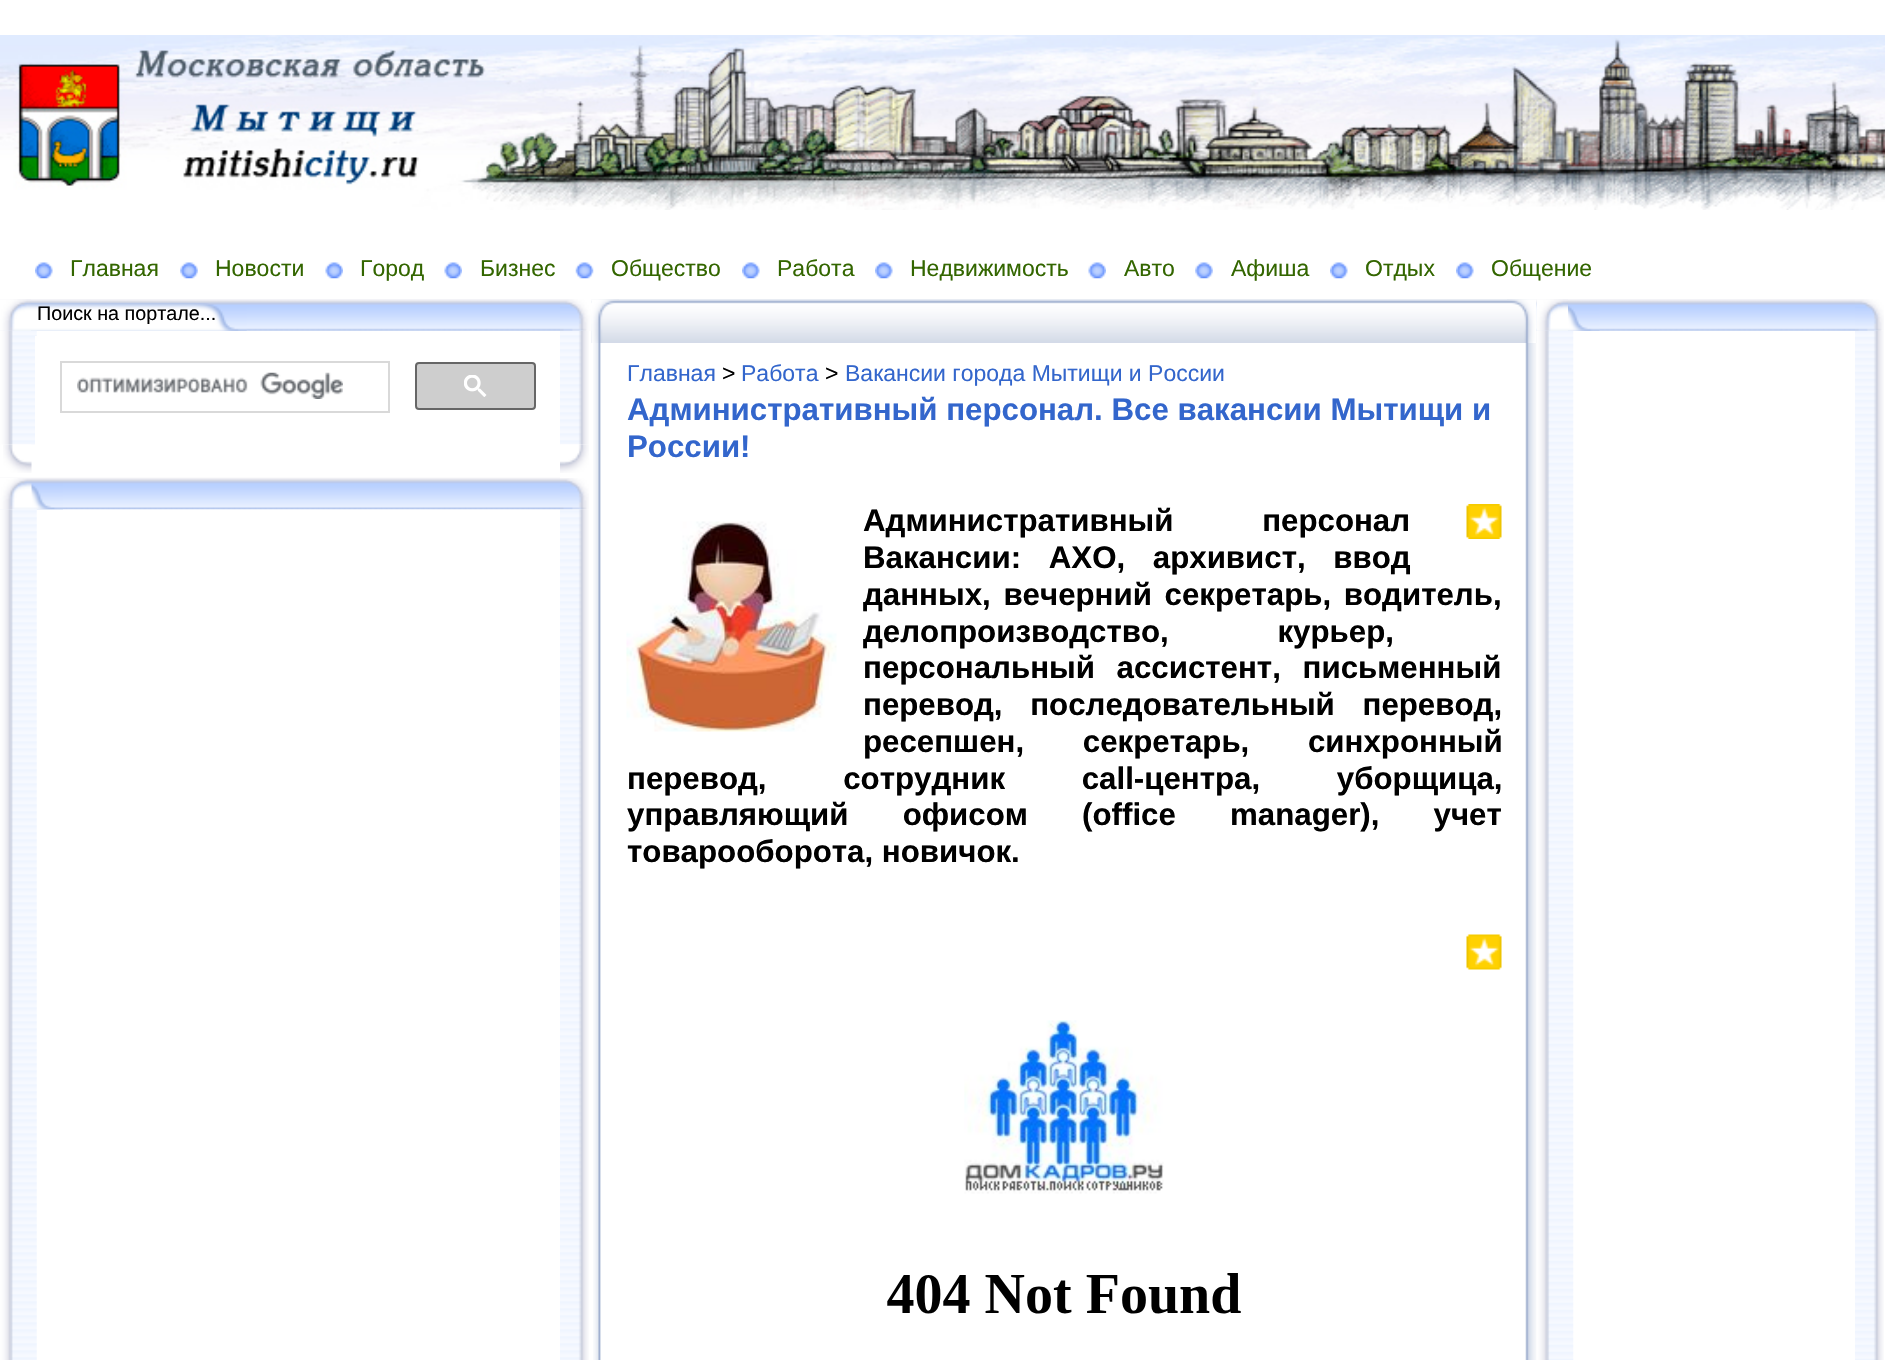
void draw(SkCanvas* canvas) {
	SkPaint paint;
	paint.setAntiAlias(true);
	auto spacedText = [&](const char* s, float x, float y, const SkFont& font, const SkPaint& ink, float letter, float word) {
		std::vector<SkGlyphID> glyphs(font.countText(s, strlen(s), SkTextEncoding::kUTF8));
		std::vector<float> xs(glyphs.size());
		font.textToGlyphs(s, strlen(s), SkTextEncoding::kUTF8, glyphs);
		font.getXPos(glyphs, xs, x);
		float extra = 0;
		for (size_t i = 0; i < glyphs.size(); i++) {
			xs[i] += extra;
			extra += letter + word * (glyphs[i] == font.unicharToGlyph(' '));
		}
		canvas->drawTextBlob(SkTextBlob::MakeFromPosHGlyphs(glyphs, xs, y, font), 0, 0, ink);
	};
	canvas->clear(0xffffffff);
	canvas->drawImageRect(SkImages::DeferredFromEncodedData(SkData::MakeFromFileName("img1.png")), SkRect::MakeXYWH(0, 35, 1885, 175), SkSamplingOptions());
	canvas->drawImageRect(SkImages::DeferredFromEncodedData(SkData::MakeFromFileName("img2.png")), SkRect::MakeXYWH(35, 262, 18, 17), SkSamplingOptions());
	SkFont f1(fontMgr->matchFamilyStyle("Liberation Sans", SkFontStyle::Normal()), 23);
	f1.setSubpixel(true);
	paint.setColor(0xff336600);
	canvas->drawString("Главная", 70, 276, f1, paint);
	canvas->drawImageRect(SkImages::DeferredFromEncodedData(SkData::MakeFromFileName("img3.png")), SkRect::MakeXYWH(180, 262, 18, 17), SkSamplingOptions());
	canvas->drawString("Новости", 215, 276, f1, paint);
	canvas->drawImageRect(SkImages::DeferredFromEncodedData(SkData::MakeFromFileName("img4.png")), SkRect::MakeXYWH(325, 262, 18, 17), SkSamplingOptions());
	canvas->drawString("Город", 360, 276, f1, paint);
	canvas->drawImageRect(SkImages::DeferredFromEncodedData(SkData::MakeFromFileName("img5.png")), SkRect::MakeXYWH(444, 262, 18, 17), SkSamplingOptions());
	canvas->drawString("Бизнес", 480, 276, f1, paint);
	canvas->drawImageRect(SkImages::DeferredFromEncodedData(SkData::MakeFromFileName("img6.png")), SkRect::MakeXYWH(575, 262, 19, 17), SkSamplingOptions());
	canvas->drawString("Общество", 611, 276, f1, paint);
	canvas->drawImageRect(SkImages::DeferredFromEncodedData(SkData::MakeFromFileName("img7.png")), SkRect::MakeXYWH(742, 262, 18, 17), SkSamplingOptions());
	canvas->drawString("Работа", 777, 276, f1, paint);
	canvas->drawImageRect(SkImages::DeferredFromEncodedData(SkData::MakeFromFileName("img7.png")), SkRect::MakeXYWH(875, 262, 18, 17), SkSamplingOptions());
	canvas->drawString("Недвижимость", 910, 276, f1, paint);
	canvas->drawImageRect(SkImages::DeferredFromEncodedData(SkData::MakeFromFileName("img5.png")), SkRect::MakeXYWH(1088, 262, 18, 17), SkSamplingOptions());
	canvas->drawString("Авто", 1124, 276, f1, paint);
	canvas->drawImageRect(SkImages::DeferredFromEncodedData(SkData::MakeFromFileName("img8.png")), SkRect::MakeXYWH(1195, 262, 18, 17), SkSamplingOptions());
	canvas->drawString("Афиша", 1231, 276, f1, paint);
	canvas->drawImageRect(SkImages::DeferredFromEncodedData(SkData::MakeFromFileName("img7.png")), SkRect::MakeXYWH(1330, 262, 18, 17), SkSamplingOptions());
	canvas->drawString("Отдых", 1365, 276, f1, paint);
	canvas->drawImageRect(SkImages::DeferredFromEncodedData(SkData::MakeFromFileName("img7.png")), SkRect::MakeXYWH(1456, 262, 18, 17), SkSamplingOptions());
	canvas->drawString("Общение", 1491, 276, f1, paint);
	canvas->drawImageRect(SkImages::DeferredFromEncodedData(SkData::MakeFromFileName("img9.png")), SkRect::MakeXYWH(0, 299, 560, 32), SkSamplingOptions());
	canvas->drawImageRect(SkImages::DeferredFromEncodedData(SkData::MakeFromFileName("img10.png")), SkRect::MakeXYWH(0, 303, 247, 28), SkSamplingOptions());
	canvas->drawImageRect(SkImages::DeferredFromEncodedData(SkData::MakeFromFileName("img13.png")), SkRect::MakeXYWH(0, 330, 37, 115), SkSamplingOptions());
	canvas->drawImageRect(SkImages::DeferredFromEncodedData(SkData::MakeFromFileName("img11.png")), SkRect::MakeXYWH(0, 299, 31, 32), SkSamplingOptions());
	SkFont f2(fontMgr->matchFamilyStyle("Liberation Sans", SkFontStyle::Normal()), 19.75);
	f2.setSubpixel(true);
	paint.setColor(0xff000000);
	canvas->drawString("Поиск на портале...", 37, 320, f2, paint);
	canvas->drawImageRect(SkImages::DeferredFromEncodedData(SkData::MakeFromFileName("img16.png")), SkRect::MakeXYWH(560, 330, 29, 115), SkSamplingOptions());
	canvas->drawImageRect(SkImages::DeferredFromEncodedData(SkData::MakeFromFileName("img31.png")), SkRect::MakeXYWH(591, 299, 946, 44), SkSamplingOptions());
	canvas->drawImageRect(SkImages::DeferredFromEncodedData(SkData::MakeFromFileName("img12.png")), SkRect::MakeXYWH(560, 299, 32, 32), SkSamplingOptions());
	paint.setColor(0xffffffff);
	canvas->drawRect(SkRect::MakeXYWH(35, 336, 2, 109), paint);
	paint.setStroke(true);
	paint.setStrokeWidth(2);
	paint.setColor(0xffd9d9d9);
	canvas->drawRect(SkRect::MakeXYWH(61, 362, 328, 50), paint);
	canvas->drawImageRect(SkImages::DeferredFromEncodedData(SkData::MakeFromFileName("img14.png")), SkRect::MakeXYWH(77, 372, 266, 27), SkSamplingOptions());
	paint.setStroke(false);
	paint.setColor(0xffcecece);
	canvas->drawRoundRect(SkRect::MakeXYWH(416, 363, 119, 46), 3, 3, paint);
	paint.setStroke(true);
	paint.setColor(0xff666666);
	canvas->drawRoundRect(SkRect::MakeXYWH(416, 363, 119, 46), 3, 3, paint);
	canvas->drawImageRect(SkImages::DeferredFromEncodedData(SkData::MakeFromFileName("img15.png")), SkRect::MakeXYWH(464, 375, 23, 22), SkSamplingOptions());
	canvas->drawImageRect(SkImages::DeferredFromEncodedData(SkData::MakeFromFileName("img17.png")), SkRect::MakeXYWH(3, 444, 29, 29), SkSamplingOptions());
	canvas->drawImageRect(SkImages::DeferredFromEncodedData(SkData::MakeFromFileName("img18.png")), SkRect::MakeXYWH(560, 444, 29, 29), SkSamplingOptions());
	canvas->drawImageRect(SkImages::DeferredFromEncodedData(SkData::MakeFromFileName("img19.png")), SkRect::MakeXYWH(0, 477, 560, 33), SkSamplingOptions());
	canvas->drawImageRect(SkImages::DeferredFromEncodedData(SkData::MakeFromFileName("img20.png")), SkRect::MakeXYWH(0, 481, 63, 29), SkSamplingOptions());
	canvas->drawImageRect(SkImages::DeferredFromEncodedData(SkData::MakeFromFileName("img21.png")), SkRect::MakeXYWH(0, 478, 32, 31), SkSamplingOptions());
	canvas->drawImageRect(SkImages::DeferredFromEncodedData(SkData::MakeFromFileName("img24.png")), SkRect::MakeXYWH(560, 509, 29, 851), SkSamplingOptions());
	canvas->drawImageRect(SkImages::DeferredFromEncodedData(SkData::MakeFromFileName("img22.png")), SkRect::MakeXYWH(560, 478, 29, 32), SkSamplingOptions());
	canvas->drawImageRect(SkImages::DeferredFromEncodedData(SkData::MakeFromFileName("img23.png")), SkRect::MakeXYWH(0, 509, 37, 851), SkSamplingOptions());
	canvas->drawImageRect(SkImages::DeferredFromEncodedData(SkData::MakeFromFileName("img32.png")), SkRect::MakeXYWH(1507, 299, 30, 44), SkSamplingOptions());
	canvas->drawImageRect(SkImages::DeferredFromEncodedData(SkData::MakeFromFileName("img25.png")), SkRect::MakeXYWH(1536, 299, 319, 32), SkSamplingOptions());
	canvas->drawImageRect(SkImages::DeferredFromEncodedData(SkData::MakeFromFileName("img26.png")), SkRect::MakeXYWH(1536, 302, 64, 29), SkSamplingOptions());
	canvas->drawImageRect(SkImages::DeferredFromEncodedData(SkData::MakeFromFileName("img35.png")), SkRect::MakeXYWH(1525, 343, 12, 1017), SkSamplingOptions());
	canvas->drawImageRect(SkImages::DeferredFromEncodedData(SkData::MakeFromFileName("img29.png")), SkRect::MakeXYWH(1536, 330, 38, 1030), SkSamplingOptions());
	canvas->drawImageRect(SkImages::DeferredFromEncodedData(SkData::MakeFromFileName("img27.png")), SkRect::MakeXYWH(1536, 299, 32, 32), SkSamplingOptions());
	canvas->drawImageRect(SkImages::DeferredFromEncodedData(SkData::MakeFromFileName("img30.png")), SkRect::MakeXYWH(1855, 330, 29, 1030), SkSamplingOptions());
	canvas->drawImageRect(SkImages::DeferredFromEncodedData(SkData::MakeFromFileName("img28.png")), SkRect::MakeXYWH(1855, 299, 29, 32), SkSamplingOptions());
	canvas->drawImageRect(SkImages::DeferredFromEncodedData(SkData::MakeFromFileName("img33.png")), SkRect::MakeXYWH(591, 299, 28, 44), SkSamplingOptions());
	canvas->drawImageRect(SkImages::DeferredFromEncodedData(SkData::MakeFromFileName("img34.png")), SkRect::MakeXYWH(593, 343, 8, 1017), SkSamplingOptions());
	paint.setStroke(false);
	paint.setColor(0xff3366cc);
	canvas->drawString("Главная", 627, 381, f1, paint);
	paint.setColor(0xff000000);
	canvas->drawString(">", 722, 381, f1, paint);
	paint.setColor(0xff3366cc);
	canvas->drawString("Работа", 741, 381, f1, paint);
	paint.setColor(0xff000000);
	canvas->drawString(">", 825, 381, f1, paint);
	paint.setColor(0xff3366cc);
	canvas->drawString("Вакансии города Мытищи и России", 845, 381, f1, paint);
	SkFont f3(fontMgr->matchFamilyStyle("Liberation Sans", SkFontStyle::Bold()), 31.25);
	f3.setSubpixel(true);
	canvas->drawString("Административный персонал. Все вакансии Мытищи и", 627, 420, f3, paint);
	canvas->drawString("России!", 627, 457, f3, paint);
	canvas->drawImageRect(SkImages::DeferredFromEncodedData(SkData::MakeFromFileName("img36.png")), SkRect::MakeXYWH(1466, 504, 36, 35), SkSamplingOptions());
	paint.setColor(0xff000000);
	spacedText("Административный персонал", 863, 531, f3, paint, 0, 80);
	spacedText("Вакансии: АХО, архивист, ввод", 863, 568, f3, paint, 0, 19);
	spacedText("данных, вечерний секретарь, водитель,", 863, 605, f3, paint, 0, 4);
	spacedText("делопроизводство, курьер,", 863, 642, f3, paint, 0, 100);
	spacedText("персональный ассистент, письменный", 863, 678, f3, paint, 0, 13);
	spacedText("перевод, последовательный перевод,", 863, 715, f3, paint, 0, 19);
	spacedText("ресепшен, секретарь, синхронный", 863, 752, f3, paint, 0, 50);
	spacedText("перевод, сотрудник call-центра, уборщица,", 627, 789, f3, paint, 0, 68);
	spacedText("управляющий офисом (оffice manager), учет", 627, 825, f3, paint, 0, 45.5);
	canvas->drawString("товарооборота, новичок.", 627, 862, f3, paint);
	canvas->drawImageRect(SkImages::DeferredFromEncodedData(SkData::MakeFromFileName("img37.png")), SkRect::MakeXYWH(626, 521, 211, 211), SkSamplingOptions());
	canvas->drawImageRect(SkImages::DeferredFromEncodedData(SkData::MakeFromFileName("img38.png")), SkRect::MakeXYWH(1466, 934, 36, 36), SkSamplingOptions());
	canvas->drawImageRect(SkImages::DeferredFromEncodedData(SkData::MakeFromFileName("img39.png")), SkRect::MakeXYWH(964, 1020, 200, 174), SkSamplingOptions());
	canvas->drawImageRect(SkImages::DeferredFromEncodedData(SkData::MakeFromFileName("img40.png")), SkRect::MakeXYWH(887, 1273, 354, 41), SkSamplingOptions());
}
